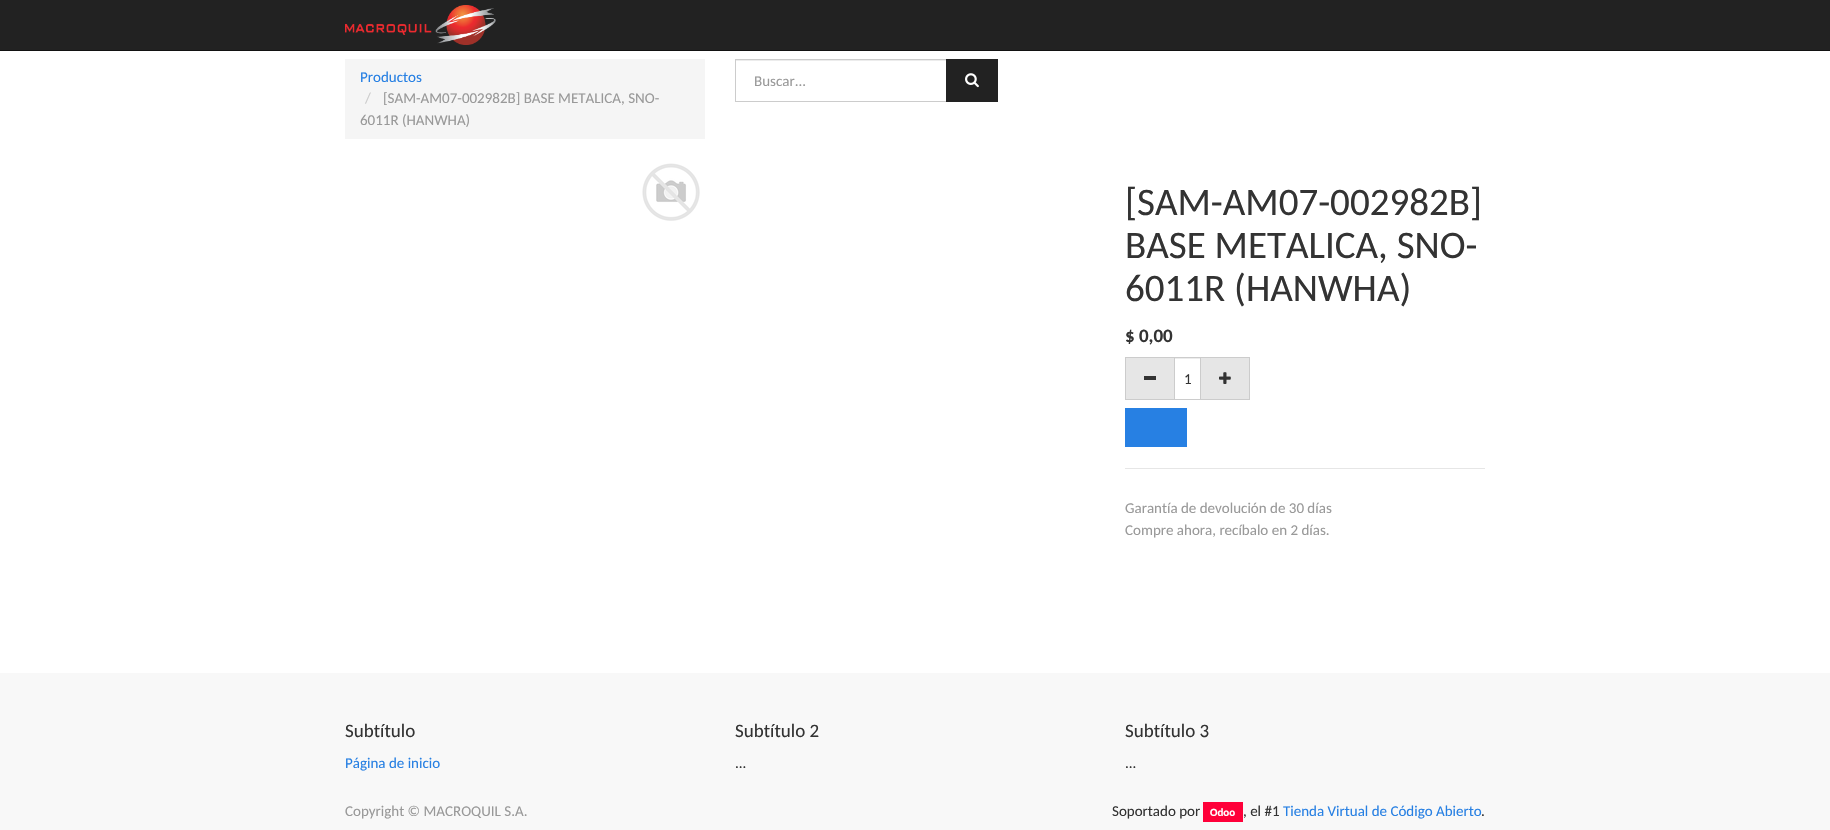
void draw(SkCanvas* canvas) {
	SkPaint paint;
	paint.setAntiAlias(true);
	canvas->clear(0xffffffff);
	paint.setColor(0xff222222);
	canvas->drawRect(SkRect::MakeXYWH(0, 0, 1830, 50), paint);
	paint.setColor(0xff121212);
	canvas->drawRect(SkRect::MakeXYWH(0, 50, 1830, 1), paint);
	canvas->drawImageRect(SkImages::DeferredFromEncodedData(SkData::MakeFromFileName("img1.png")), SkRect::MakeXYWH(345, 5, 151, 40), SkSamplingOptions());
	paint.setColor(0xfff5f5f5);
	canvas->drawRect(SkRect::MakeXYWH(345, 59, 360, 80), paint);
	SkFont f1(fontMgr->matchFamilyStyle("Carlito", SkFontStyle::Normal()), 15);
	f1.setSubpixel(true);
	paint.setColor(0xff2780e3);
	canvas->drawString("Productos", 360, 82, f1, paint);
	paint.setColor(0xffcccccc);
	canvas->drawString("/", 365, 103, f1, paint);
	paint.setColor(0xff999999);
	canvas->drawString("[SAM-AM07-002982B] BASE METALICA, SNO-", 383, 103, f1, paint);
	canvas->drawString("6011R (HANWHA)", 360, 125, f1, paint);
	paint.setColor(0xffececec);
	canvas->drawRect(SkRect::MakeXYWH(736, 60, 210, 1), paint);
	paint.setStroke(true);
	paint.setStrokeWidth(1);
	paint.setColor(0xffcccccc);
	canvas->drawRect(SkRect::MakeXYWH(735.5, 59.5, 211, 42), paint);
	paint.setStroke(false);
	paint.setColor(0xff999999);
	canvas->drawString("Buscar...", 754, 86, f1, paint);
	paint.setColor(0xff222222);
	canvas->drawRect(SkRect::MakeXYWH(946, 59, 52, 43), paint);
	canvas->drawImageRect(SkImages::DeferredFromEncodedData(SkData::MakeFromFileName("img2.png")), SkRect::MakeXYWH(965, 73, 14, 15), SkSamplingOptions());
	canvas->drawImageRect(SkImages::DeferredFromEncodedData(SkData::MakeFromFileName("img3.png")), SkRect::MakeXYWH(642, 163, 58, 58), SkSamplingOptions());
	SkFont f2(fontMgr->matchFamilyStyle("Carlito", SkFontStyle::Normal()), 39);
	f2.setSubpixel(true);
	paint.setColor(0xff333333);
	canvas->drawString("[SAM-AM07-002982B]", 1125, 215, f2, paint);
	canvas->drawString("BASE METALICA, SNO-", 1125, 258, f2, paint);
	canvas->drawString("6011R (HANWHA)", 1125, 301, f2, paint);
	SkFont f3(fontMgr->matchFamilyStyle("Carlito", SkFontStyle::Bold()), 19);
	f3.setSubpixel(true);
	canvas->drawString("$ 0,00", 1125, 342, f3, paint);
	paint.setColor(0xffe6e6e6);
	canvas->drawRect(SkRect::MakeXYWH(1126, 358, 48, 41), paint);
	paint.setColor(0xffcccccc);
	canvas->drawRect(SkRect::MakeXYWH(1125, 357, 49, 1), paint);
	canvas->drawRect(SkRect::MakeXYWH(1125, 399, 49, 1), paint);
	canvas->drawRect(SkRect::MakeXYWH(1125, 357, 1, 43), paint);
	paint.setColor(0xff333333);
	canvas->drawRect(SkRect::MakeXYWH(1144, 376, 12, 4), paint);
	paint.setColor(0xffececec);
	canvas->drawRect(SkRect::MakeXYWH(1175, 358, 25, 1), paint);
	paint.setStroke(true);
	paint.setColor(0xffcccccc);
	canvas->drawRect(SkRect::MakeXYWH(1174.5, 357.5, 26, 42), paint);
	paint.setStroke(false);
	paint.setColor(0xff333333);
	canvas->drawString("1", 1184, 384, f1, paint);
	paint.setColor(0xffe6e6e6);
	canvas->drawRect(SkRect::MakeXYWH(1201, 358, 48, 41), paint);
	paint.setColor(0xffcccccc);
	canvas->drawRect(SkRect::MakeXYWH(1201, 357, 49, 1), paint);
	canvas->drawRect(SkRect::MakeXYWH(1249, 357, 1, 43), paint);
	canvas->drawRect(SkRect::MakeXYWH(1201, 399, 49, 1), paint);
	canvas->drawImageRect(SkImages::DeferredFromEncodedData(SkData::MakeFromFileName("img4.png")), SkRect::MakeXYWH(1219, 372, 12, 12), SkSamplingOptions());
	paint.setColor(0xff2780e3);
	canvas->drawRect(SkRect::MakeXYWH(1125, 408, 62, 39), paint);
	paint.setColor(0xffe6e6e6);
	canvas->drawRect(SkRect::MakeXYWH(1125, 468, 360, 1), paint);
	paint.setColor(0xff999999);
	canvas->drawString("Garantía de devolución de 30 días", 1125, 513, f1, paint);
	canvas->drawString("Compre ahora, recíbalo en 2 días.", 1125, 535, f1, paint);
	paint.setColor(0xfff8f8f8);
	canvas->drawRect(SkRect::MakeXYWH(0, 673, 1830, 157), paint);
	SkFont f4(fontMgr->matchFamilyStyle("Carlito", SkFontStyle::Normal()), 19);
	f4.setSubpixel(true);
	paint.setColor(0xff333333);
	canvas->drawString("Subtítulo", 345, 737, f4, paint);
	paint.setColor(0xff2780e3);
	canvas->drawString("Página de inicio", 345, 768, f1, paint);
	paint.setColor(0xff333333);
	canvas->drawString("Subtítulo 2", 735, 737, f4, paint);
	canvas->drawString("...", 735, 768, f1, paint);
	canvas->drawString("Subtítulo 3", 1125, 737, f4, paint);
	canvas->drawString("...", 1125, 768, f1, paint);
	paint.setColor(0xff999999);
	canvas->drawString("Copyright © MACROQUIL S.A.", 345, 816, f1, paint);
	paint.setColor(0xff333333);
	canvas->drawString("Soportado por", 1112, 816, f1, paint);
	paint.setColor(0xffff0039);
	canvas->drawRect(SkRect::MakeXYWH(1203, 802, 40, 20), paint);
	SkFont f5(fontMgr->matchFamilyStyle("Carlito", SkFontStyle::Bold()), 11);
	f5.setSubpixel(true);
	paint.setColor(0xffffffff);
	canvas->drawString("Odoo", 1210, 816, f5, paint);
	paint.setColor(0xff333333);
	canvas->drawString(", el #1", 1243, 816, f1, paint);
	paint.setColor(0xff2780e3);
	canvas->drawString("Tienda Virtual de Código Abierto", 1283, 816, f1, paint);
	paint.setColor(0xff333333);
	canvas->drawString(".", 1481, 816, f1, paint);
}
